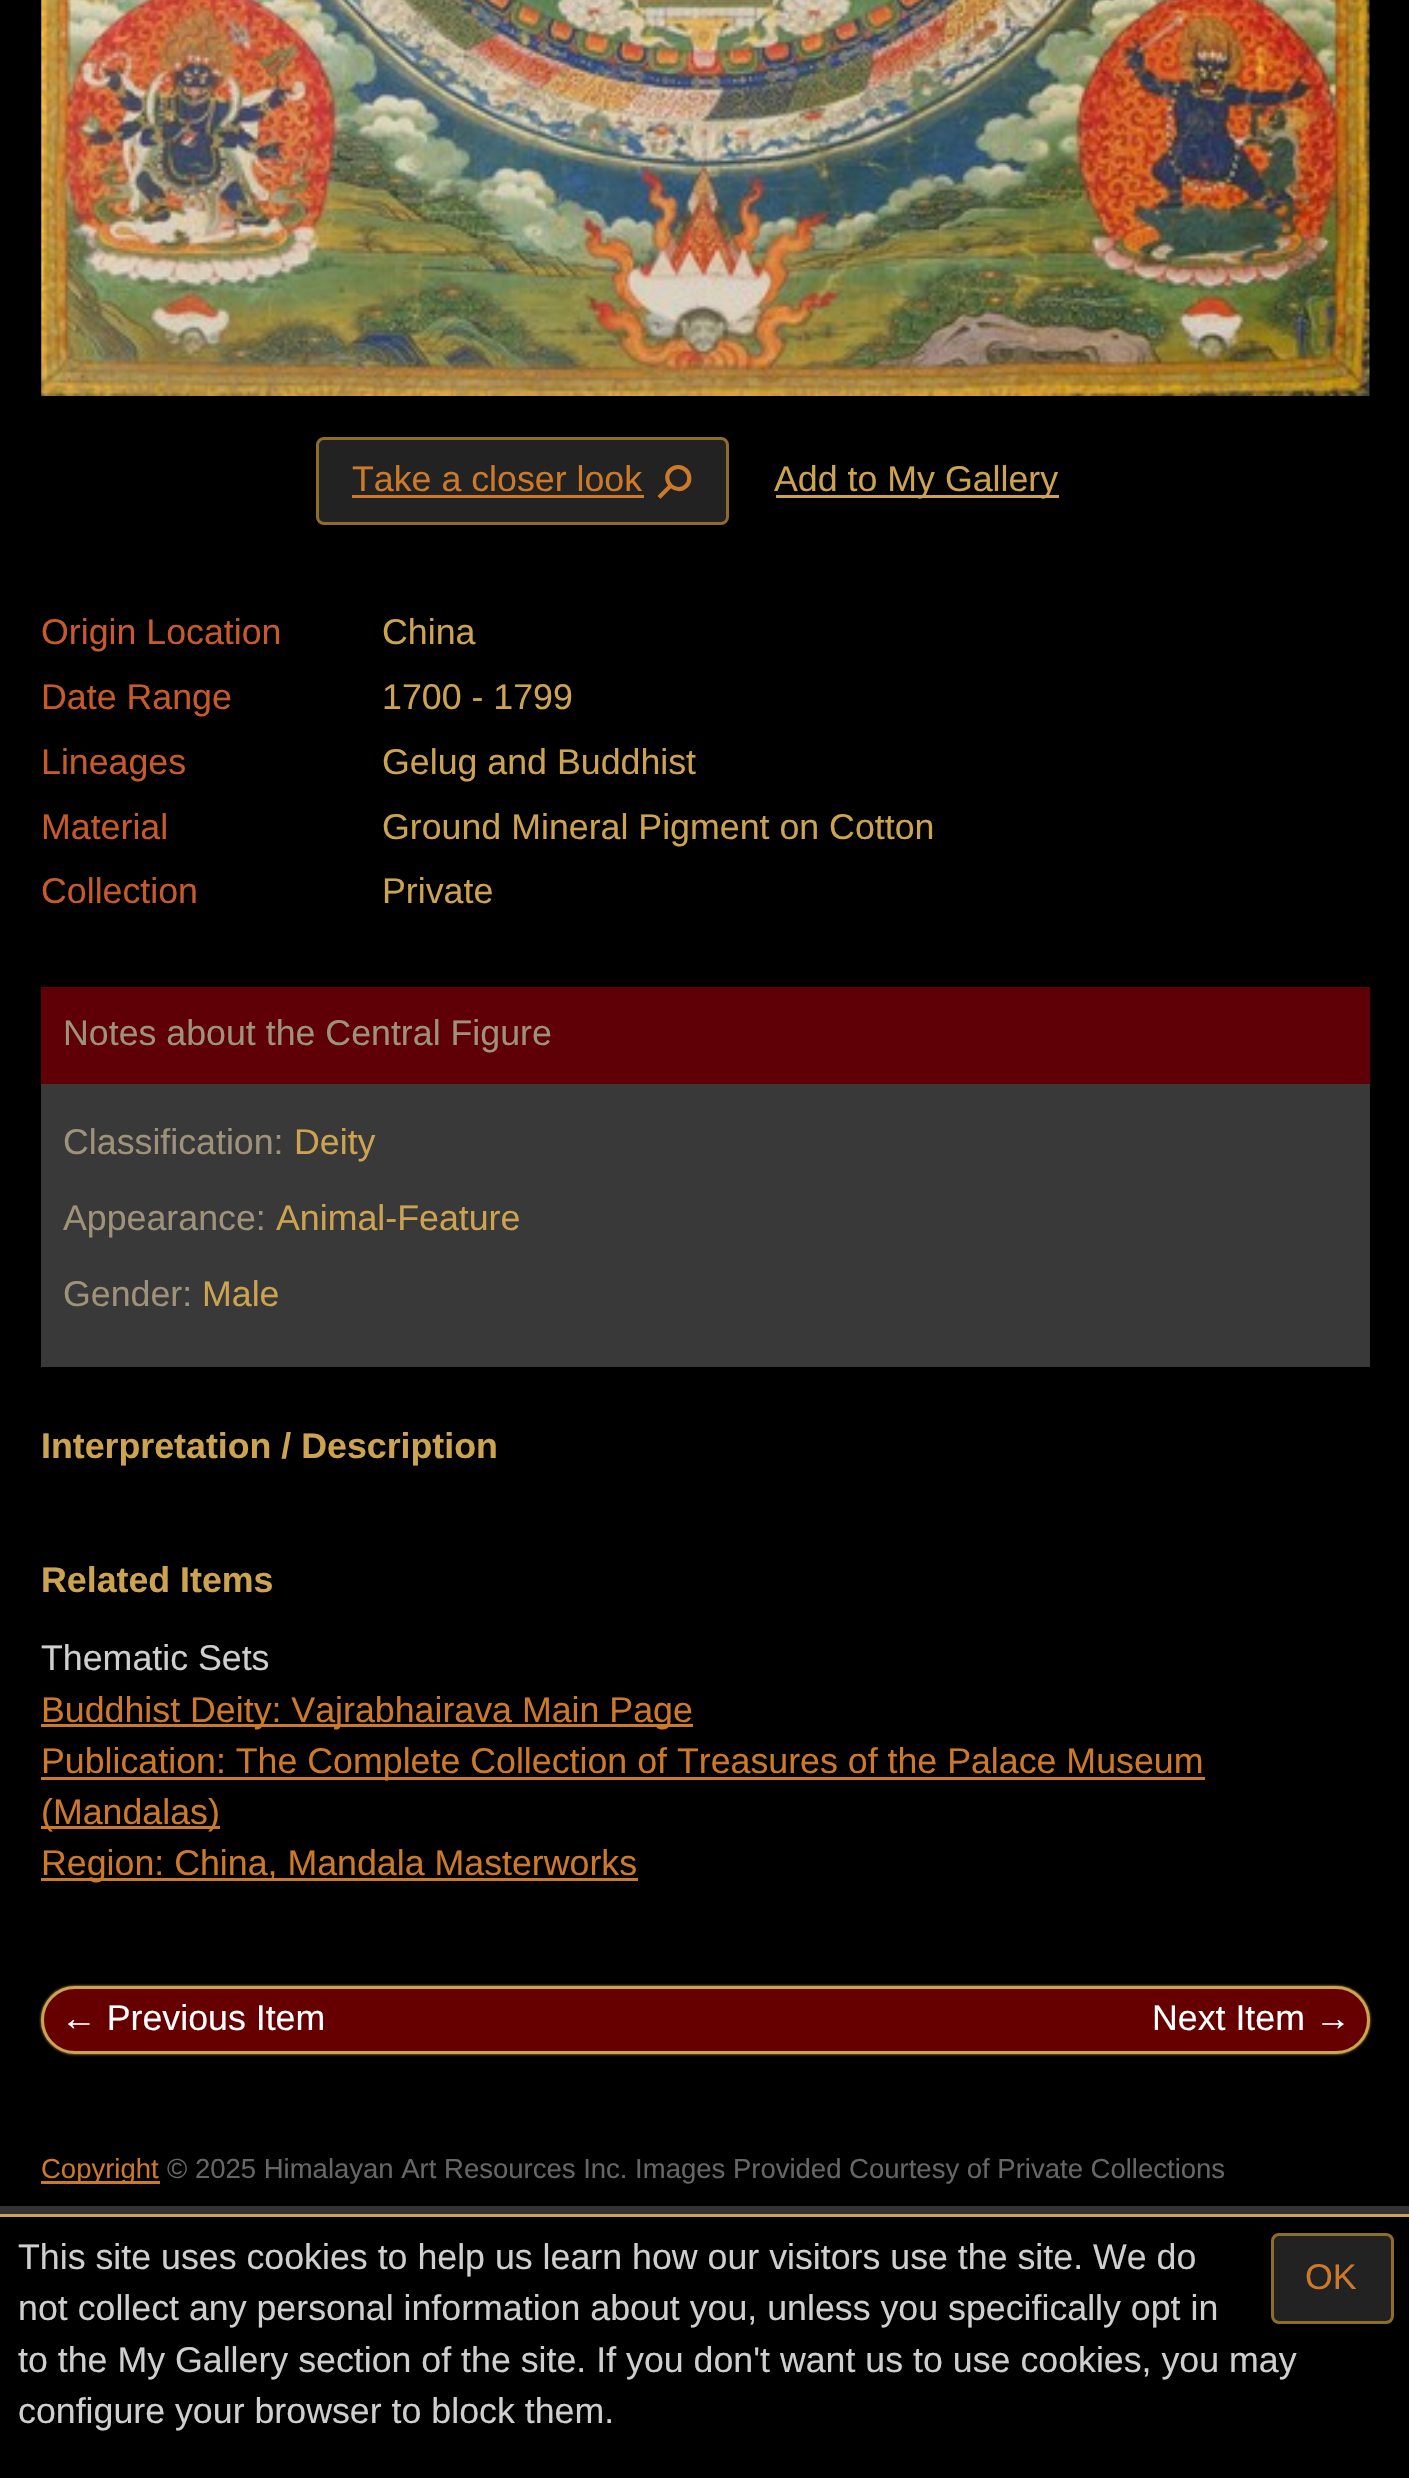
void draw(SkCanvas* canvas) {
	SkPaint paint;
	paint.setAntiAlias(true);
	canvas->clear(0xff333333);
	paint.setColor(0xff000000);
	canvas->drawRect(SkRect::MakeXYWH(0, 0, 1409, 2206), paint);
	canvas->drawImageRect(SkImages::DeferredFromEncodedData(SkData::MakeFromFileName("img1.png")), SkRect::MakeXYWH(41, 0, 1329, 396), SkSamplingOptions());
	paint.setColor(0xff222222);
	canvas->drawRoundRect(SkRect::MakeXYWH(317.5, 438.5, 410, 85), 6.5, 6.5, paint);
	paint.setStroke(true);
	paint.setStrokeWidth(3);
	paint.setColor(0xff8e6c29);
	canvas->drawRoundRect(SkRect::MakeXYWH(317.5, 438.5, 410, 85), 6.5, 6.5, paint);
	SkFont f1(fontMgr->matchFamilyStyle("Liberation Sans", SkFontStyle::Normal()), 35.75);
	f1.setSubpixel(true);
	paint.setStroke(false);
	paint.setColor(0xffcc792a);
	canvas->drawString("Take a closer look", 352, 491, f1, paint);
	canvas->drawRect(SkRect::MakeXYWH(352, 495, 292, 3), paint);
	SkFont f2(fontMgr->matchFamilyStyle("DejaVu Sans", SkFontStyle::Normal()), 47);
	f2.setSubpixel(true);
	canvas->save();
	canvas->rotate(45, 651, 481);
	canvas->drawString("⚲", 651, 481, f2, paint);
	canvas->restore();
	paint.setColor(0xffcca351);
	canvas->drawRect(SkRect::MakeXYWH(776, 495, 283, 3), paint);
	canvas->drawString("Add to My Gallery", 774, 491, f1, paint);
	paint.setColor(0xffc65a2d);
	canvas->drawString("Origin Location", 41, 644, f1, paint);
	paint.setColor(0xffcca351);
	canvas->drawString("China", 382, 644, f1, paint);
	paint.setColor(0xffc65a2d);
	canvas->drawString("Date Range", 41, 709, f1, paint);
	paint.setColor(0xffcca351);
	canvas->drawString("1700 - 1799", 382, 709, f1, paint);
	paint.setColor(0xffc65a2d);
	canvas->drawString("Lineages", 41, 774, f1, paint);
	paint.setColor(0xffcca351);
	canvas->drawString("Gelug and Buddhist", 382, 774, f1, paint);
	paint.setColor(0xffc65a2d);
	canvas->drawString("Material", 41, 839, f1, paint);
	paint.setColor(0xffcca351);
	canvas->drawString("Ground Mineral Pigment on Cotton", 382, 839, f1, paint);
	paint.setColor(0xffc65a2d);
	canvas->drawString("Collection", 41, 903, f1, paint);
	paint.setColor(0xffcca351);
	canvas->drawString("Private", 382, 903, f1, paint);
	paint.setColor(0xff393939);
	canvas->drawRect(SkRect::MakeXYWH(41, 1084, 1329, 283), paint);
	paint.setColor(0xff5e0005);
	canvas->drawRect(SkRect::MakeXYWH(41, 987, 1329, 97), paint);
	paint.setColor(0xff9f927a);
	canvas->drawString("Notes about the Central Figure", 63, 1045, f1, paint);
	canvas->drawString("Classification:", 63, 1154, f1, paint);
	paint.setColor(0xffcca351);
	canvas->drawString("Deity", 294, 1154, f1, paint);
	paint.setColor(0xff9f927a);
	canvas->drawString("Appearance:", 63, 1230, f1, paint);
	paint.setColor(0xffcca351);
	canvas->drawString("Animal-Feature", 276, 1230, f1, paint);
	paint.setColor(0xff9f927a);
	canvas->drawString("Gender:", 63, 1306, f1, paint);
	paint.setColor(0xffcca351);
	canvas->drawString("Male", 202, 1306, f1, paint);
	SkFont f3(fontMgr->matchFamilyStyle("Liberation Sans", SkFontStyle::Bold()), 35.75);
	f3.setSubpixel(true);
	canvas->drawString("Interpretation / Description", 41, 1458, f3, paint);
	canvas->drawString("Related Items", 41, 1592, f3, paint);
	paint.setColor(0xffcfcfcf);
	canvas->drawString("Thematic Sets", 41, 1670, f1, paint);
	paint.setColor(0xffcc792a);
	canvas->drawRect(SkRect::MakeXYWH(41, 1724, 652, 3), paint);
	canvas->drawString("Buddhist Deity: Vajrabhairava Main Page", 41, 1722, f1, paint);
	canvas->drawRect(SkRect::MakeXYWH(41, 1777, 1164, 3), paint);
	canvas->drawString("Publication: The Complete Collection of Treasures of the Palace Museum", 41, 1773, f1, paint);
	canvas->drawRect(SkRect::MakeXYWH(41, 1826, 179, 3), paint);
	canvas->drawString("(Mandalas)", 41, 1824, f1, paint);
	canvas->drawRect(SkRect::MakeXYWH(41, 1878, 597, 3), paint);
	canvas->drawString("Region: China, Mandala Masterworks", 41, 1875, f1, paint);
	paint.setColor(0xffcca351);
	paint.setMaskFilter(SkMaskFilter::MakeBlur(kNormal_SkBlurStyle, 1.5));
	canvas->drawRoundRect(SkRect::MakeXYWH(41, 1986, 1329, 68), 34, 34, paint);
	paint.setMaskFilter(nullptr);
	paint.setColor(0xff660000);
	canvas->drawRoundRect(SkRect::MakeXYWH(42.5, 1987.5, 1326, 65), 32.5, 32.5, paint);
	paint.setStroke(true);
	paint.setColor(0xffcca351);
	canvas->drawRoundRect(SkRect::MakeXYWH(42.5, 1987.5, 1326, 65), 32.5, 32.5, paint);
	paint.setStroke(false);
	paint.setColor(0xffffffff);
	canvas->drawString("← Previous Item", 61, 2030, f1, paint);
	canvas->drawString("Next Item →", 1152, 2030, f1, paint);
	paint.setColor(0xffcc792a);
	canvas->drawRect(SkRect::MakeXYWH(41, 2181, 119, 3), paint);
	SkFont f4(fontMgr->matchFamilyStyle("Liberation Sans", SkFontStyle::Normal()), 27.5);
	f4.setSubpixel(true);
	canvas->drawString("Copyright", 41, 2178, f4, paint);
	paint.setColor(0xff666666);
	canvas->drawString("© 2025 Himalayan Art Resources Inc. Images Provided Courtesy of Private Collections", 167, 2178, f4, paint);
	paint.setColor(0xff000000);
	canvas->drawRect(SkRect::MakeXYWH(0, 2217, 1409, 261), paint);
	paint.setColor(0xffcca351);
	canvas->drawRect(SkRect::MakeXYWH(0, 2214, 1409, 3), paint);
	paint.setColor(0xffcfcfcf);
	canvas->drawString("This site uses cookies to help us learn how our visitors use the site. We do", 18, 2269, f1, paint);
	canvas->drawString("not collect any personal information about you, unless you specifically opt in", 18, 2320, f1, paint);
	canvas->drawString("to the My Gallery section of the site. If you don't want us to use cookies, you may", 18, 2372, f1, paint);
	canvas->drawString("configure your browser to block them.", 18, 2423, f1, paint);
	paint.setColor(0xff222222);
	canvas->drawRoundRect(SkRect::MakeXYWH(1272.5, 2234.5, 120, 88), 6.5, 6.5, paint);
	paint.setStroke(true);
	paint.setColor(0xff8e6c29);
	canvas->drawRoundRect(SkRect::MakeXYWH(1272.5, 2234.5, 120, 88), 6.5, 6.5, paint);
	paint.setStroke(false);
	paint.setColor(0xffcc792a);
	canvas->drawString("OK", 1305, 2289, f1, paint);
}
